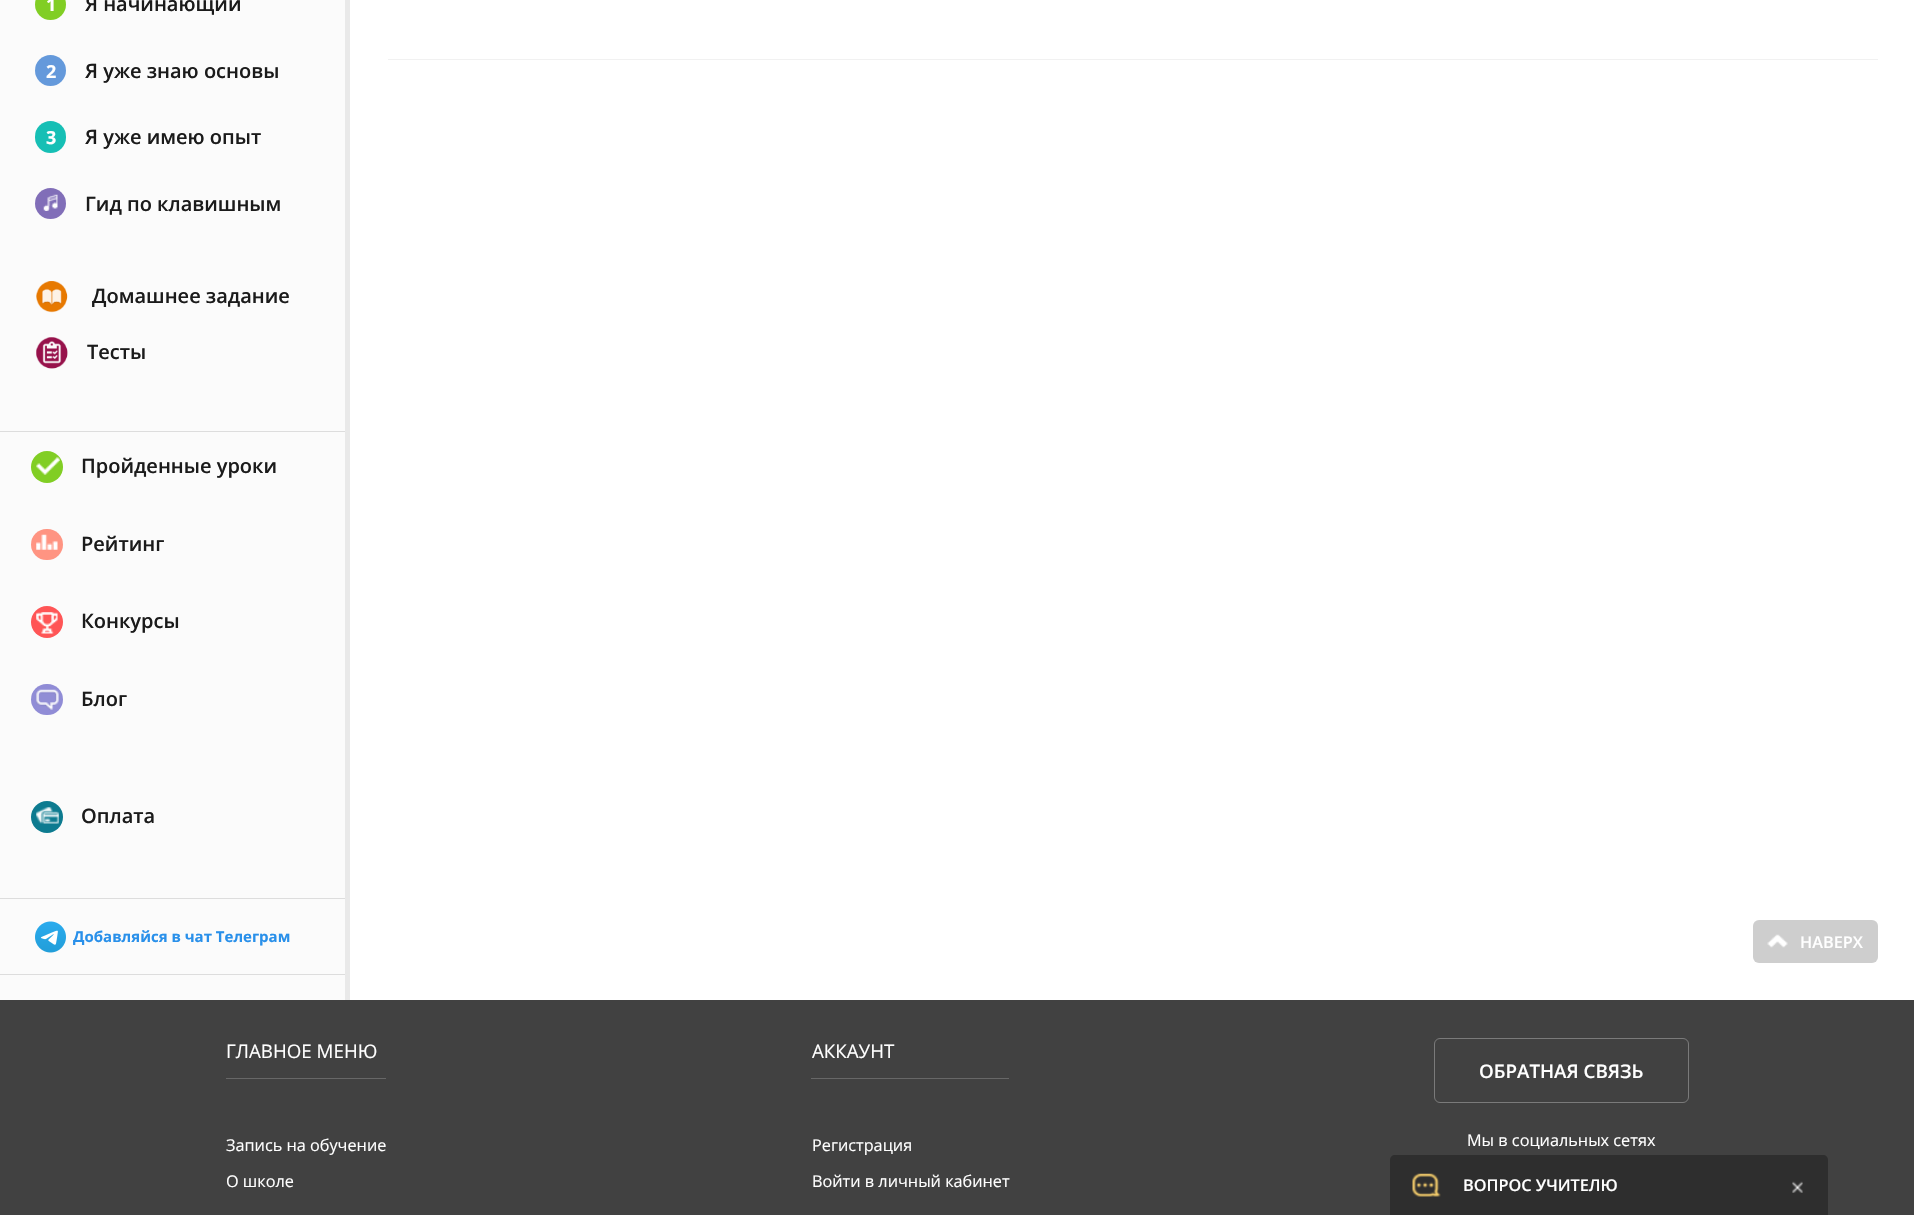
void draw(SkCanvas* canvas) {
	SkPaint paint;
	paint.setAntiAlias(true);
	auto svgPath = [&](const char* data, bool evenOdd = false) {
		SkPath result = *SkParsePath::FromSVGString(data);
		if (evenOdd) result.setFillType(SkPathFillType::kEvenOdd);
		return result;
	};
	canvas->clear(0xffffffff);
	paint.setColor(0xfffbfbfb);
	canvas->drawRect(SkRect::MakeXYWH(0, 0, 345, 1000), paint);
	paint.setColor(0xffe9e9e9);
	canvas->drawRect(SkRect::MakeXYWH(345, 0, 5, 1000), paint);
	paint.setColor(0xffdddddd);
	canvas->drawRect(SkRect::MakeXYWH(0, 431, 345, 1), paint);
	paint.setColor(0xff81ce24);
	canvas->drawCircle(50.5, 4.5, 15.5, paint);
	SkFont f1(fontMgr->matchFamilyStyle("Open Sans", SkFontStyle::Bold()), 18);
	f1.setSubpixel(true);
	paint.setColor(0xffffffff);
	canvas->drawString("1", 46, 11, f1, paint);
	SkFont f2(fontMgr->matchFamilyStyle("Open Sans", SkFontStyle(600, SkFontStyle::kNormal_Width, SkFontStyle::kUpright_Slant)), 20);
	f2.setSubpixel(true);
	paint.setColor(0xff1b1b1b);
	canvas->drawString("Я начинающий", 85, 11, f2, paint);
	paint.setColor(0xff6499db);
	canvas->drawCircle(50.5, 70.5, 15.5, paint);
	paint.setColor(0xffffffff);
	canvas->drawString("2", 46, 78, f1, paint);
	paint.setColor(0xff1b1b1b);
	canvas->drawString("Я уже знаю основы", 85, 78, f2, paint);
	paint.setColor(0xff16bfb5);
	canvas->drawRoundRect(SkRect::MakeXYWH(35, 121, 31, 32), 15.5, 15.5, paint);
	paint.setColor(0xffffffff);
	canvas->drawString("3", 46, 144, f1, paint);
	paint.setColor(0xff1b1b1b);
	canvas->drawString("Я уже имею опыт", 85, 144, f2, paint);
	paint.setColor(0xff816eb8);
	canvas->drawCircle(50.5, 203.5, 15.5, paint);
	canvas->drawImageRect(SkImages::DeferredFromEncodedData(SkData::MakeFromFileName("img1.png")), SkRect::MakeXYWH(43, 194, 15, 17), SkSamplingOptions());
	paint.setColor(0xff1b1b1b);
	canvas->drawString("Гид по клавишным", 85, 211, f2, paint);
	canvas->drawImageRect(SkImages::DeferredFromEncodedData(SkData::MakeFromFileName("img2.png")), SkRect::MakeXYWH(36, 281, 32, 32), SkSamplingOptions());
	canvas->drawString("Домашнее задание", 92, 303, f2, paint);
	canvas->drawImageRect(SkImages::DeferredFromEncodedData(SkData::MakeFromFileName("img3.png")), SkRect::MakeXYWH(36, 337, 32, 32), SkSamplingOptions());
	canvas->drawString("Тесты", 87, 359, f2, paint);
	paint.setColor(0xffdddddd);
	canvas->drawRect(SkRect::MakeXYWH(0, 898, 345, 1), paint);
	paint.setColor(0xff81ce24);
	canvas->drawCircle(47, 467, 16, paint);
	canvas->drawImageRect(SkImages::DeferredFromEncodedData(SkData::MakeFromFileName("img4.png")), SkRect::MakeXYWH(36, 457, 24, 18), SkSamplingOptions());
	paint.setColor(0xff1b1b1b);
	canvas->drawString("Пройденные уроки", 81, 473, f2, paint);
	paint.setColor(0xffff9482);
	canvas->drawRoundRect(SkRect::MakeXYWH(31, 529, 32, 31), 15.5, 15.5, paint);
	canvas->drawImageRect(SkImages::DeferredFromEncodedData(SkData::MakeFromFileName("img5.png")), SkRect::MakeXYWH(36, 534, 22, 16), SkSamplingOptions());
	paint.setColor(0xff1b1b1b);
	canvas->drawString("Рейтинг", 81, 551, f2, paint);
	paint.setColor(0xffff5556);
	canvas->drawCircle(47, 622, 16, paint);
	canvas->drawImageRect(SkImages::DeferredFromEncodedData(SkData::MakeFromFileName("img6.png")), SkRect::MakeXYWH(36, 612, 22, 22), SkSamplingOptions());
	paint.setColor(0xff1b1b1b);
	canvas->drawString("Конкурсы", 81, 628, f2, paint);
	paint.setColor(0xff908cd6);
	canvas->drawRoundRect(SkRect::MakeXYWH(31, 684, 32, 31), 15.5, 15.5, paint);
	canvas->drawImageRect(SkImages::DeferredFromEncodedData(SkData::MakeFromFileName("img7.png")), SkRect::MakeXYWH(36, 689, 23, 21), SkSamplingOptions());
	paint.setColor(0xff1b1b1b);
	canvas->drawString("Блог", 81, 706, f2, paint);
	paint.setColor(0xff0d7b90);
	canvas->drawCircle(47, 817, 16, paint);
	canvas->drawImageRect(SkImages::DeferredFromEncodedData(SkData::MakeFromFileName("img8.png")), SkRect::MakeXYWH(36, 807, 23, 17), SkSamplingOptions());
	paint.setColor(0xff1b1b1b);
	canvas->drawString("Оплата", 81, 823, f2, paint);
	paint.setColor(0xffdddddd);
	canvas->drawRect(SkRect::MakeXYWH(0, 974, 345, 1), paint);
	canvas->drawImageRect(SkImages::DeferredFromEncodedData(SkData::MakeFromFileName("img9.png")), SkRect::MakeXYWH(35, 921, 31, 32), SkSamplingOptions());
	SkFont f3(fontMgr->matchFamilyStyle("Open Sans", SkFontStyle::Bold()), 15);
	f3.setSubpixel(true);
	paint.setColor(0xff2990ea);
	canvas->drawString("Добавляйся в чат Телеграм", 73, 942, f3, paint);
	paint.setColor(0xfff1f1f1);
	canvas->drawRect(SkRect::MakeXYWH(388, 59, 1490, 1), paint);
	paint.setColor(0xffcecece);
	canvas->drawRoundRect(SkRect::MakeXYWH(1753, 920, 125, 43), 6, 6, paint);
	canvas->drawImageRect(SkImages::DeferredFromEncodedData(SkData::MakeFromFileName("img10.png")), SkRect::MakeXYWH(1767, 934, 21, 14), SkSamplingOptions());
	SkFont f4(fontMgr->matchFamilyStyle("Open Sans", SkFontStyle(600, SkFontStyle::kNormal_Width, SkFontStyle::kUpright_Slant)), 16.25);
	f4.setSubpixel(true);
	paint.setColor(0xffffffff);
	canvas->drawString("НАВЕРХ", 1800, 948, f4, paint);
	paint.setColor(0xff414141);
	canvas->drawRect(SkRect::MakeXYWH(0, 1000, 1914, 215), paint);
	paint.setColor(0xff676767);
	canvas->drawRect(SkRect::MakeXYWH(226, 1078, 160, 1), paint);
	SkFont f5(fontMgr->matchFamilyStyle("Open Sans", SkFontStyle::Normal()), 18.75);
	f5.setSubpixel(true);
	paint.setColor(0xffffffff);
	canvas->drawString("ГЛАВНОЕ МЕНЮ", 226, 1058, f5, paint);
	SkFont f6(fontMgr->matchFamilyStyle("Open Sans", SkFontStyle::Normal()), 16.25);
	f6.setSubpixel(true);
	canvas->drawString("Запись на обучение", 226, 1151, f6, paint);
	canvas->drawString("О школе", 226, 1187, f6, paint);
	paint.setColor(0xff676767);
	canvas->drawRect(SkRect::MakeXYWH(811, 1078, 198, 1), paint);
	paint.setColor(0xffffffff);
	canvas->drawString("АККАУНТ", 812, 1058, f5, paint);
	canvas->drawString("Регистрация", 812, 1151, f6, paint);
	canvas->drawString("Войти в личный кабинет", 812, 1187, f6, paint);
	paint.setStroke(true);
	paint.setStrokeWidth(1);
	paint.setColor(0xff7a7a7a);
	canvas->drawRoundRect(SkRect::MakeXYWH(1434.5, 1038.5, 254, 64), 5.5, 5.5, paint);
	SkFont f7(fontMgr->matchFamilyStyle("Open Sans", SkFontStyle(600, SkFontStyle::kNormal_Width, SkFontStyle::kUpright_Slant)), 18.75);
	f7.setSubpixel(true);
	paint.setStroke(false);
	paint.setColor(0xffffffff);
	canvas->drawString("ОБРАТНАЯ СВЯЗЬ", 1479, 1078, f7, paint);
	canvas->drawString("Мы в социальных сетях", 1467, 1146, f6, paint);
	paint.setColor(0xff2e2e2e);
	canvas->drawPath(svgPath("M1395 1155H1823C1826 1155 1828 1157 1828 1160V1215H1390V1160C1390 1157 1392 1155 1395 1155Z"), paint);
	canvas->drawImageRect(SkImages::DeferredFromEncodedData(SkData::MakeFromFileName("img11.png")), SkRect::MakeXYWH(1412, 1173, 29, 24), SkSamplingOptions());
	paint.setColor(0xffffffff);
	canvas->drawString("ВОПРОС УЧИТЕЛЮ", 1463, 1191, f4, paint);
	canvas->drawImageRect(SkImages::DeferredFromEncodedData(SkData::MakeFromFileName("img12.png")), SkRect::MakeXYWH(1792, 1181, 11, 12), SkSamplingOptions());
}
